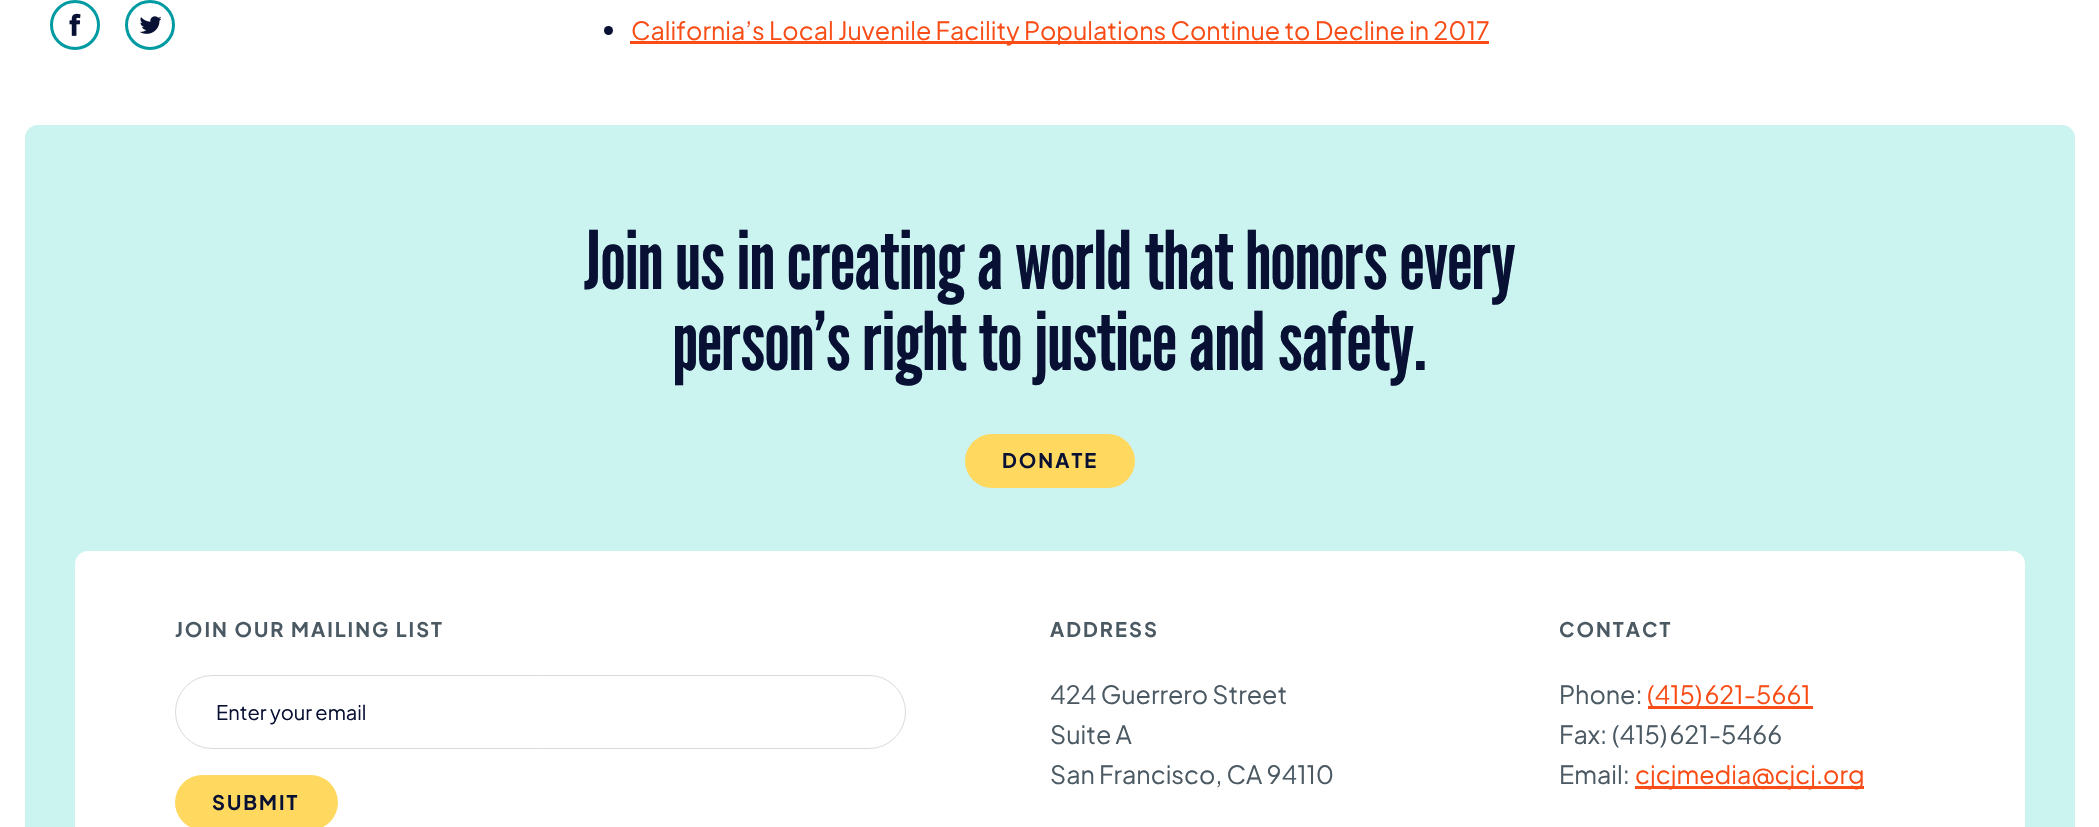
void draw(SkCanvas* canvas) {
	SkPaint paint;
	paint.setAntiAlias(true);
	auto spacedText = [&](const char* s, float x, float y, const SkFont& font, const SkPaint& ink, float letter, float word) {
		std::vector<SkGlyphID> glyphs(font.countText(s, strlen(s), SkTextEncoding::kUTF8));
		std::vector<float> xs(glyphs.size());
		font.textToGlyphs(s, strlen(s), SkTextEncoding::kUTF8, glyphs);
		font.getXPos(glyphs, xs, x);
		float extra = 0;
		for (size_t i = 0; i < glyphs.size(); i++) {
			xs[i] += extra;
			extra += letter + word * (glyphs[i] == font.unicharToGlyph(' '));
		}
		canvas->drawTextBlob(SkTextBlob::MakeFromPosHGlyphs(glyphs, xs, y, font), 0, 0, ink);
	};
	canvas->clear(0xffffffff);
	paint.setStroke(true);
	paint.setStrokeWidth(3);
	paint.setColor(0xff009ba2);
	canvas->drawCircle(75, 25, 23.5, paint);
	canvas->drawImageRect(SkImages::DeferredFromEncodedData(SkData::MakeFromFileName("img1.png")), SkRect::MakeXYWH(69, 13, 12, 23), SkSamplingOptions());
	canvas->drawCircle(150, 25, 23.5, paint);
	canvas->drawImageRect(SkImages::DeferredFromEncodedData(SkData::MakeFromFileName("img2.png")), SkRect::MakeXYWH(139, 16, 22, 18), SkSamplingOptions());
	paint.setStroke(false);
	paint.setColor(0xff081034);
	canvas->drawCircle(608.5, 30.5, 4.5, paint);
	paint.setColor(0xfff84d17);
	canvas->drawRect(SkRect::MakeXYWH(630, 41, 859, 3), paint);
	SkFont f1(fontMgr->matchFamilyStyle("Plus Jakarta Sans", SkFontStyle::Normal()), 25);
	f1.setSubpixel(true);
	canvas->drawString("California’s Local Juvenile Facility Populations Continue to Decline in 2017", 631, 40, f1, paint);
	paint.setColor(0xffcbf3f0);
	canvas->drawRoundRect(SkRect::MakeXYWH(25, 125, 2050, 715), 13, 13, paint);
	SkFont f2(fontMgr->matchFamilyStyle("League Gothic", SkFontStyle::Normal()), 80.6);
	f2.setSubpixel(true);
	paint.setColor(0xff081034);
	canvas->drawString("Join us in creating a world that honors every", 584, 289, f2, paint);
	canvas->drawString("person’s right to justice and safety.", 673, 370, f2, paint);
	paint.setColor(0xffffd95f);
	canvas->drawRoundRect(SkRect::MakeXYWH(965, 434, 170, 54), 27, 27, paint);
	SkFont f3(fontMgr->matchFamilyStyle("Plus Jakarta Sans", SkFontStyle::Bold()), 20);
	f3.setSubpixel(true);
	paint.setColor(0xff081034);
	spacedText("DONATE", 1002, 468, f3, paint, 2, 0);
	paint.setColor(0xffffffff);
	canvas->drawRoundRect(SkRect::MakeXYWH(75, 551, 1950, 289), 13, 13, paint);
	paint.setColor(0xff4b5963);
	spacedText("JOIN OUR MAILING LIST", 175, 637, f3, paint, 2, 0);
	paint.setStroke(true);
	paint.setStrokeWidth(1);
	paint.setColor(0xffdadada);
	canvas->drawRoundRect(SkRect::MakeXYWH(175.5, 675.5, 730, 73), 36.5, 36.5, paint);
	SkFont f4(fontMgr->matchFamilyStyle("Plus Jakarta Sans", SkFontStyle::Normal()), 20);
	f4.setSubpixel(true);
	paint.setStroke(false);
	paint.setColor(0xff081034);
	canvas->drawString("Enter your email", 216, 720, f4, paint);
	paint.setColor(0xffffd95f);
	canvas->drawRoundRect(SkRect::MakeXYWH(175, 775, 163, 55), 27.5, 27.5, paint);
	paint.setColor(0xff081034);
	spacedText("SUBMIT", 212, 810, f3, paint, 2, 0);
	paint.setColor(0xff4b5963);
	spacedText("ADDRESS", 1050, 637, f3, paint, 2, 0);
	canvas->drawString("424 Guerrero Street", 1050, 704, f1, paint);
	canvas->drawString("Suite A", 1050, 744, f1, paint);
	canvas->drawString("San Francisco, CA 94110", 1050, 784, f1, paint);
	spacedText("CONTACT", 1559, 637, f3, paint, 2, 0);
	canvas->drawString("Phone:", 1559, 704, f1, paint);
	paint.setColor(0xfff84d17);
	canvas->drawRect(SkRect::MakeXYWH(1648, 706, 165, 3), paint);
	spacedText("(415) 621-5661", 1647, 704, f1, paint, 0, -2);
	paint.setColor(0xff4b5963);
	canvas->drawString("Fax:", 1559, 744, f1, paint);
	spacedText("(415) 621-5466", 1612, 744, f1, paint, 0, -2);
	canvas->drawString("Email:", 1559, 784, f1, paint);
	paint.setColor(0xfff84d17);
	canvas->drawRect(SkRect::MakeXYWH(1635, 786, 229, 3), paint);
	canvas->drawString("cjcjmedia@cjcj.org", 1635, 784, f1, paint);
}
